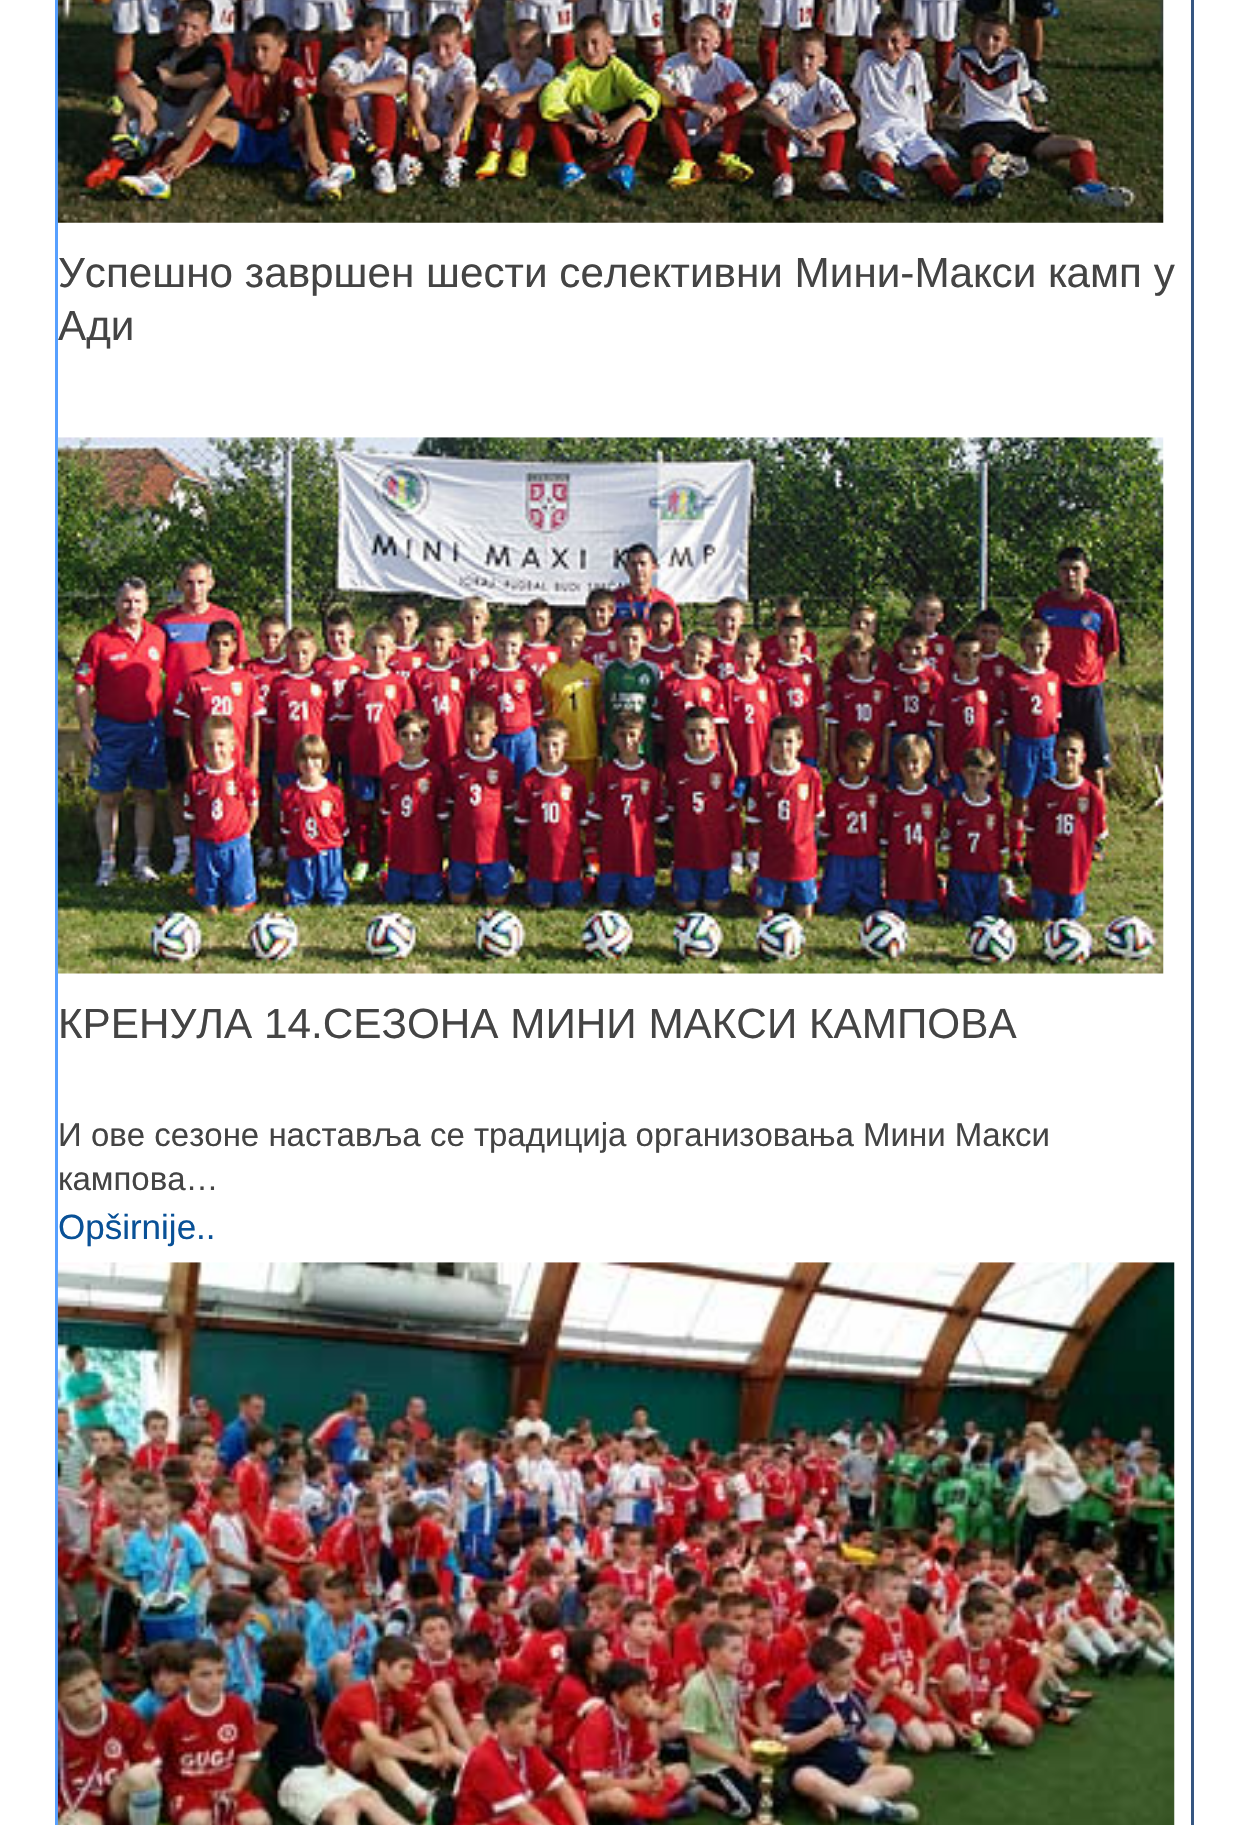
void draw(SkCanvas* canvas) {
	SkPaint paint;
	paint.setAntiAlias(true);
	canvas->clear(0xffffffff);
	paint.setColor(0xff355681);
	canvas->drawRect(SkRect::MakeXYWH(1191, 0, 3, 1825), paint);
	paint.setColor(0xff57a0ff);
	canvas->drawRect(SkRect::MakeXYWH(55, 0, 3, 1825), paint);
	canvas->drawImageRect(SkImages::DeferredFromEncodedData(SkData::MakeFromFileName("img1.png")), SkRect::MakeXYWH(57, 0, 1107, 223), SkSamplingOptions());
	SkFont f1(fontMgr->matchFamilyStyle("Liberation Sans", SkFontStyle::Normal()), 42.25);
	f1.setSubpixel(true);
	paint.setColor(0xff444444);
	canvas->drawString("Успешно завршен шести селективни Мини-Макси камп у", 58, 287, f1, paint);
	canvas->drawString("Ади", 58, 340, f1, paint);
	canvas->drawImageRect(SkImages::DeferredFromEncodedData(SkData::MakeFromFileName("img2.png")), SkRect::MakeXYWH(57, 437, 1107, 537), SkSamplingOptions());
	canvas->drawString("КРЕНУЛА 14.СЕЗОНА МИНИ МАКСИ КАМПОВА", 58, 1038, f1, paint);
	SkFont f2(fontMgr->matchFamilyStyle("Liberation Sans", SkFontStyle::Normal()), 33);
	f2.setSubpixel(true);
	canvas->drawString("И ове сезоне наставља се традиција организовања Мини Макси", 58, 1146, f2, paint);
	canvas->drawString("кампова…", 58, 1190, f2, paint);
	SkFont f3(fontMgr->matchFamilyStyle("Liberation Sans", SkFontStyle::Normal()), 35);
	f3.setSubpixel(true);
	paint.setColor(0xff095197);
	canvas->drawString("Opširnije..", 58, 1239, f3, paint);
	canvas->drawImageRect(SkImages::DeferredFromEncodedData(SkData::MakeFromFileName("img3.png")), SkRect::MakeXYWH(57, 1262, 1118, 563), SkSamplingOptions());
}
